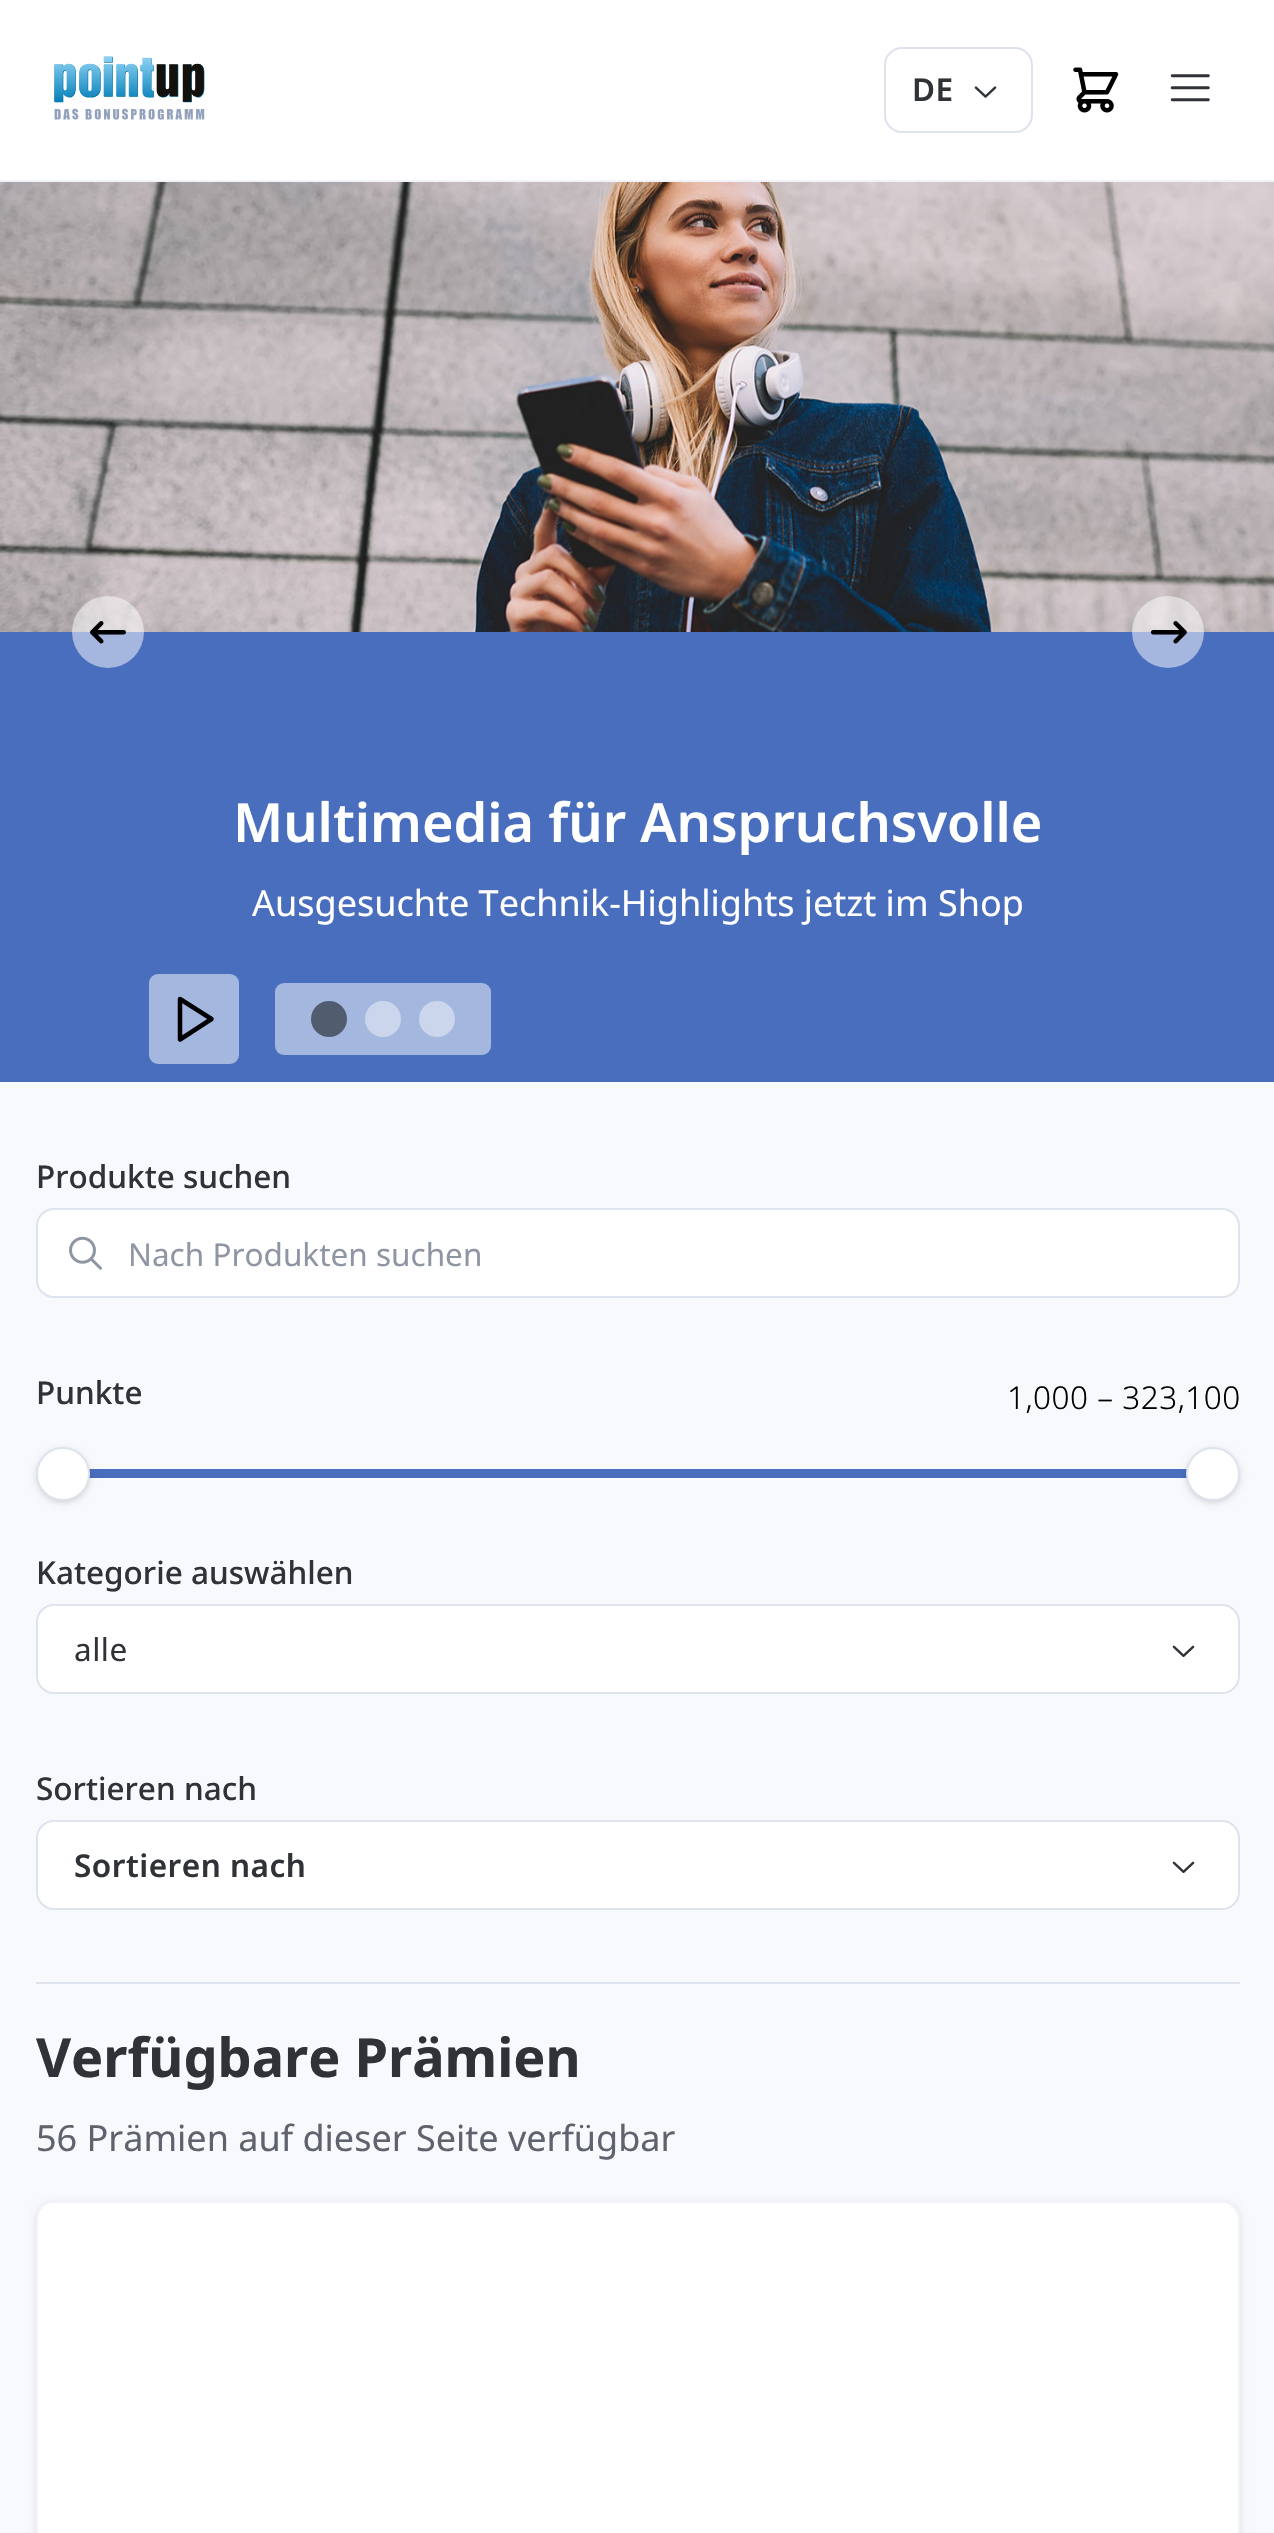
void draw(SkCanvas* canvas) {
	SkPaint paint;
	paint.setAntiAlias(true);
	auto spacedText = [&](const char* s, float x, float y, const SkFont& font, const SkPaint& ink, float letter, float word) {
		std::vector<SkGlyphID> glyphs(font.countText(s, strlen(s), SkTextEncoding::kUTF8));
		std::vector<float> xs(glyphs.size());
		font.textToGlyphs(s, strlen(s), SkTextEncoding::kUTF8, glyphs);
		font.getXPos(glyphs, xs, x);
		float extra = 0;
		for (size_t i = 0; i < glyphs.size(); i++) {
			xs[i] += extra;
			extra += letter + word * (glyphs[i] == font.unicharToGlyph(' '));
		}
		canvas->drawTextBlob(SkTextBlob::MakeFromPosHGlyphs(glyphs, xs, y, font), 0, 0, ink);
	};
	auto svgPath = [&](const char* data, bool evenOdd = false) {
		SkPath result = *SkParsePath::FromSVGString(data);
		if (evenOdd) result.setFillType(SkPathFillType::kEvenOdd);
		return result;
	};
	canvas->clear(0xffffffff);
	paint.setColor(0xfff1f3f9);
	canvas->drawRect(SkRect::MakeXYWH(0, 180, 1274, 2), paint);
	canvas->drawImageRect(SkImages::DeferredFromEncodedData(SkData::MakeFromFileName("img1.png")), SkRect::MakeXYWH(54, 56, 151, 64), SkSamplingOptions());
	paint.setStroke(true);
	paint.setStrokeWidth(2);
	paint.setColor(0xffdee3ed);
	canvas->drawRoundRect(SkRect::MakeXYWH(885, 48, 147, 84), 17, 17, paint);
	SkFont f1(fontMgr->matchFamilyStyle("Noto Sans", SkFontStyle(600, SkFontStyle::kNormal_Width, SkFontStyle::kUpright_Slant)), 31.5);
	f1.setSubpixel(true);
	paint.setStroke(false);
	paint.setColor(0xff2f3237);
	spacedText("DE", 912, 101, f1, paint, 0.5, 0);
	canvas->drawImageRect(SkImages::DeferredFromEncodedData(SkData::MakeFromFileName("img2.png")), SkRect::MakeXYWH(974, 86, 23, 12), SkSamplingOptions());
	canvas->drawImageRect(SkImages::DeferredFromEncodedData(SkData::MakeFromFileName("img3.png")), SkRect::MakeXYWH(1073, 67, 46, 46), SkSamplingOptions());
	canvas->drawImageRect(SkImages::DeferredFromEncodedData(SkData::MakeFromFileName("img4.png")), SkRect::MakeXYWH(1170, 74, 40, 28), SkSamplingOptions());
	paint.setColor(0xfff8f9fc);
	canvas->drawRect(SkRect::MakeXYWH(0, 1082, 1274, 1451), paint);
	canvas->drawImageRect(SkImages::DeferredFromEncodedData(SkData::MakeFromFileName("img7.png")), SkRect::MakeXYWH(0, 182, 1274, 450), SkSamplingOptions());
	paint.setColor(0xff496ebd);
	canvas->drawRect(SkRect::MakeXYWH(0, 632, 1274, 450), paint);
	paint.setColor(0x80ffffff);
	canvas->drawCircle(108, 632, 36, paint);
	canvas->drawImageRect(SkImages::DeferredFromEncodedData(SkData::MakeFromFileName("img5.png")), SkRect::MakeXYWH(90, 621, 36, 23), SkSamplingOptions());
	canvas->drawCircle(1168, 632, 36, paint);
	canvas->drawImageRect(SkImages::DeferredFromEncodedData(SkData::MakeFromFileName("img6.png")), SkRect::MakeXYWH(1150, 621, 37, 23), SkSamplingOptions());
	SkFont f2(fontMgr->matchFamilyStyle("Noto Sans", SkFontStyle(600, SkFontStyle::kNormal_Width, SkFontStyle::kUpright_Slant)), 54);
	f2.setSubpixel(true);
	paint.setColor(0xffffffff);
	canvas->drawString("Multimedia für Anspruchsvolle", 233, 842, f2, paint);
	SkFont f3(fontMgr->matchFamilyStyle("Noto Sans", SkFontStyle::Normal()), 36);
	f3.setSubpixel(true);
	canvas->drawString("Ausgesuchte Technik-Highlights jetzt im Shop", 252, 916, f3, paint);
	paint.setColor(0xffa4b7de);
	canvas->drawRoundRect(SkRect::MakeXYWH(149, 974, 90, 90), 9, 9, paint);
	paint.setStroke(true);
	paint.setStrokeWidth(4.5);
	paint.setStrokeCap(SkPaint::kRound_Cap);
	paint.setStrokeJoin(SkPaint::kRound_Join);
	paint.setColor(0xff000000);
	canvas->drawPath(svgPath("M180 999L211.5 1019L180 1039.5Z"), paint);
	paint.setStroke(false);
	paint.setColor(0xffa4b7de);
	canvas->drawRoundRect(SkRect::MakeXYWH(275, 983, 216, 72), 9, 9, paint);
	paint.setColor(0xff525c6f);
	canvas->drawCircle(329, 1019, 18, paint);
	paint.setColor(0xffcbd5ec);
	canvas->drawCircle(383, 1019, 18, paint);
	canvas->drawCircle(437, 1019, 18, paint);
	SkFont f4(fontMgr->matchFamilyStyle("Noto Sans", SkFontStyle(500, SkFontStyle::kNormal_Width, SkFontStyle::kUpright_Slant)), 31.5);
	f4.setSubpixel(true);
	paint.setColor(0xff2f3237);
	canvas->drawString("Produkte suchen", 36, 1188, f4, paint);
	paint.setColor(0xffffffff);
	canvas->drawRoundRect(SkRect::MakeXYWH(37, 1209, 1202, 88), 17, 17, paint);
	paint.setStroke(true);
	paint.setStrokeWidth(2);
	paint.setStrokeCap(SkPaint::kButt_Cap);
	paint.setStrokeJoin(SkPaint::kMiter_Join);
	paint.setColor(0xffdee3ed);
	canvas->drawRoundRect(SkRect::MakeXYWH(37, 1209, 1202, 88), 17, 17, paint);
	canvas->drawImageRect(SkImages::DeferredFromEncodedData(SkData::MakeFromFileName("img8.png")), SkRect::MakeXYWH(69, 1236, 33, 34), SkSamplingOptions());
	SkFont f5(fontMgr->matchFamilyStyle("Noto Sans", SkFontStyle::Normal()), 31.5);
	f5.setSubpixel(true);
	paint.setStroke(false);
	paint.setColor(0xff8f96a3);
	canvas->drawString("Nach Produkten suchen", 128, 1266, f5, paint);
	paint.setColor(0xff2f3237);
	canvas->drawString("Punkte", 36, 1404, f4, paint);
	SkFont f6(fontMgr->matchFamilyStyle("Noto Sans", SkFontStyle(300, SkFontStyle::kNormal_Width, SkFontStyle::kUpright_Slant)), 31.5);
	f6.setSubpixel(true);
	paint.setColor(0xff000000);
	spacedText("1,000 – 323,100", 1007, 1409, f6, paint, 0.5, 0);
	paint.setColor(0xff496ebd);
	canvas->drawRect(SkRect::MakeXYWH(89, 1469, 1098, 9), paint);
	paint.setColor(0x1a000000);
	paint.setMaskFilter(SkMaskFilter::MakeBlur(kNormal_SkBlurStyle, 2));
	canvas->drawRoundRect(SkRect::MakeXYWH(38, 1451, 50, 50), 25, 25, paint);
	paint.setMaskFilter(nullptr);
	paint.setMaskFilter(SkMaskFilter::MakeBlur(kNormal_SkBlurStyle, 3.5));
	canvas->drawRoundRect(SkRect::MakeXYWH(36, 1449, 54, 54), 27, 27, paint);
	paint.setMaskFilter(nullptr);
	paint.setColor(0xffffffff);
	canvas->drawCircle(63, 1474, 26, paint);
	paint.setStroke(true);
	paint.setColor(0xffdee3ed);
	canvas->drawCircle(63, 1474, 26, paint);
	paint.setStroke(false);
	paint.setColor(0x1a000000);
	paint.setMaskFilter(SkMaskFilter::MakeBlur(kNormal_SkBlurStyle, 2));
	canvas->drawRoundRect(SkRect::MakeXYWH(1188, 1451, 50, 50), 25, 25, paint);
	paint.setMaskFilter(nullptr);
	paint.setMaskFilter(SkMaskFilter::MakeBlur(kNormal_SkBlurStyle, 3.5));
	canvas->drawRoundRect(SkRect::MakeXYWH(1186, 1449, 54, 54), 27, 27, paint);
	paint.setMaskFilter(nullptr);
	paint.setColor(0xffffffff);
	canvas->drawCircle(1213, 1474, 26, paint);
	paint.setStroke(true);
	paint.setColor(0xffdee3ed);
	canvas->drawCircle(1213, 1474, 26, paint);
	paint.setStroke(false);
	paint.setColor(0xff2f3237);
	canvas->drawString("Kategorie auswählen", 36, 1584, f4, paint);
	paint.setColor(0xffffffff);
	canvas->drawRoundRect(SkRect::MakeXYWH(37, 1605, 1202, 88), 17, 17, paint);
	paint.setStroke(true);
	paint.setColor(0xffdee3ed);
	canvas->drawRoundRect(SkRect::MakeXYWH(37, 1605, 1202, 88), 17, 17, paint);
	paint.setStroke(false);
	paint.setColor(0xff2f3237);
	spacedText("alle", 74, 1661, f5, paint, 0.5, 0);
	canvas->drawImageRect(SkImages::DeferredFromEncodedData(SkData::MakeFromFileName("img9.png")), SkRect::MakeXYWH(1172, 1645, 23, 12), SkSamplingOptions());
	canvas->drawString("Sortieren nach", 36, 1800, f4, paint);
	paint.setColor(0xffffffff);
	canvas->drawRoundRect(SkRect::MakeXYWH(37, 1821, 1202, 88), 17, 17, paint);
	paint.setStroke(true);
	paint.setColor(0xffdee3ed);
	canvas->drawRoundRect(SkRect::MakeXYWH(37, 1821, 1202, 88), 17, 17, paint);
	paint.setStroke(false);
	paint.setColor(0xff2f3237);
	spacedText("Sortieren nach", 74, 1877, f1, paint, 0.5, 0);
	canvas->drawImageRect(SkImages::DeferredFromEncodedData(SkData::MakeFromFileName("img9.png")), SkRect::MakeXYWH(1172, 1861, 23, 12), SkSamplingOptions());
	paint.setColor(0xffdee3ed);
	canvas->drawRect(SkRect::MakeXYWH(36, 1982, 1204, 2), paint);
	SkFont f7(fontMgr->matchFamilyStyle("Noto Sans", SkFontStyle::Bold()), 54);
	f7.setSubpixel(true);
	paint.setColor(0xff2f3237);
	canvas->drawString("Verfügbare Prämien", 36, 2077, f7, paint);
	paint.setColor(0xff5e636e);
	canvas->drawString("56 Prämien auf dieser Seite verfügbar", 36, 2151, f3, paint);
	paint.setColor(0x1a000000);
	paint.setMaskFilter(SkMaskFilter::MakeBlur(kNormal_SkBlurStyle, 3.5));
	canvas->drawRoundRect(SkRect::MakeXYWH(36, 2203, 1204, 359), 18, 18, paint);
	paint.setMaskFilter(nullptr);
	paint.setColor(0xffffffff);
	canvas->drawRoundRect(SkRect::MakeXYWH(37, 2202, 1202, 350), 17, 17, paint);
	paint.setStroke(true);
	paint.setColor(0xfff1f3f9);
	canvas->drawRoundRect(SkRect::MakeXYWH(37, 2202, 1202, 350), 17, 17, paint);
	canvas->drawImageRect(SkImages::DeferredFromEncodedData(SkData::MakeFromFileName("img10.png")), SkRect::MakeXYWH(40, 2203, 1191, 8), SkSamplingOptions());
}
